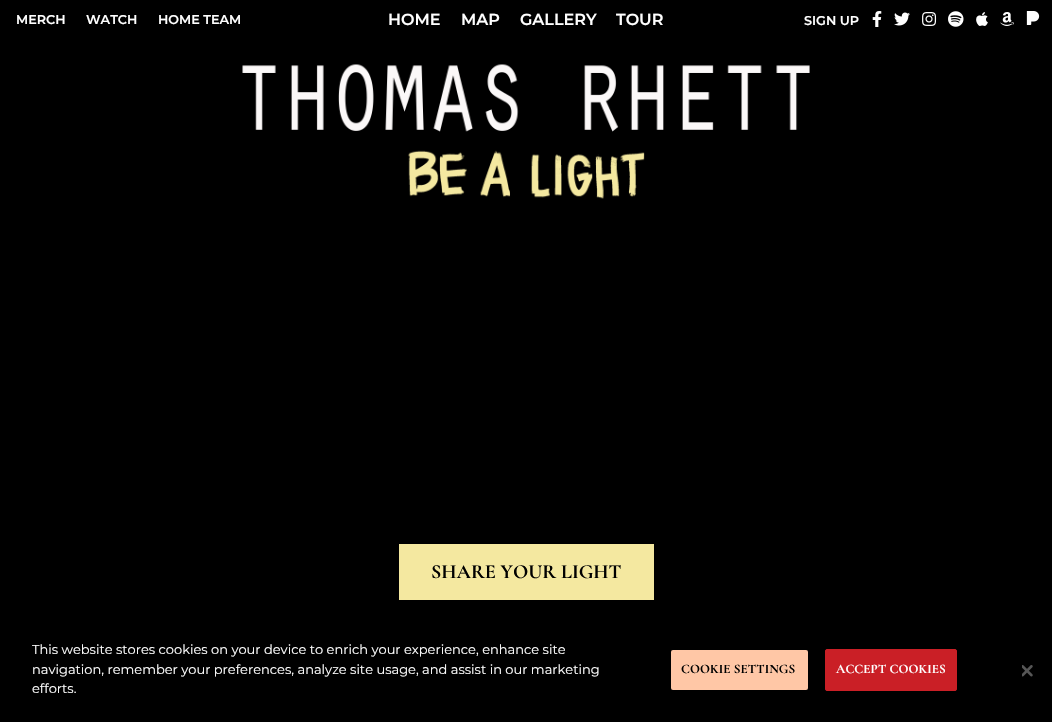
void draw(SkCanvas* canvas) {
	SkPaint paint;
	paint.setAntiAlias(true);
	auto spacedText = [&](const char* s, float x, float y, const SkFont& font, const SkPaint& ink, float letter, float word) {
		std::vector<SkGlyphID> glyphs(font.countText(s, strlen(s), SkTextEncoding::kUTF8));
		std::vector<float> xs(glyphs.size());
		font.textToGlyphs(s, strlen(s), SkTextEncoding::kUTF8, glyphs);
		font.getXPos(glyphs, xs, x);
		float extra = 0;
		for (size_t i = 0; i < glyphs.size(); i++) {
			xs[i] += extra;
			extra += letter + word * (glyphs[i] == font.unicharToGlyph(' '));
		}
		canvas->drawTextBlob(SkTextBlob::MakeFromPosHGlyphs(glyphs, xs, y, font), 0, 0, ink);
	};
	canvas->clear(0xff000000);
	SkFont f1(fontMgr->matchFamilyStyle("Montserrat", SkFontStyle(600, SkFontStyle::kNormal_Width, SkFontStyle::kUpright_Slant)), 16);
	f1.setSubpixel(true);
	paint.setColor(0xffffffff);
	canvas->drawString("HOME", 388, 25, f1, paint);
	canvas->drawString("MAP", 461, 25, f1, paint);
	canvas->drawString("GALLERY", 520, 25, f1, paint);
	canvas->drawString("TOUR", 616, 25, f1, paint);
	SkFont f2(fontMgr->matchFamilyStyle("Montserrat", SkFontStyle(600, SkFontStyle::kNormal_Width, SkFontStyle::kUpright_Slant)), 12.75);
	f2.setSubpixel(true);
	canvas->drawString("MERCH", 16, 24, f2, paint);
	canvas->drawString("WATCH", 86, 24, f2, paint);
	canvas->drawString("HOME TEAM", 158, 24, f2, paint);
	canvas->drawString("SIGN UP", 804, 25, f2, paint);
	canvas->drawImageRect(SkImages::DeferredFromEncodedData(SkData::MakeFromFileName("img1.png")), SkRect::MakeXYWH(872, 11, 10, 16), SkSamplingOptions());
	canvas->drawImageRect(SkImages::DeferredFromEncodedData(SkData::MakeFromFileName("img2.png")), SkRect::MakeXYWH(894, 12, 16, 14), SkSamplingOptions());
	canvas->drawImageRect(SkImages::DeferredFromEncodedData(SkData::MakeFromFileName("img3.png")), SkRect::MakeXYWH(922, 12, 15, 14), SkSamplingOptions());
	canvas->drawImageRect(SkImages::DeferredFromEncodedData(SkData::MakeFromFileName("img4.png")), SkRect::MakeXYWH(948, 11, 16, 16), SkSamplingOptions());
	canvas->drawImageRect(SkImages::DeferredFromEncodedData(SkData::MakeFromFileName("img5.png")), SkRect::MakeXYWH(976, 12, 12, 14), SkSamplingOptions());
	canvas->drawImageRect(SkImages::DeferredFromEncodedData(SkData::MakeFromFileName("img6.png")), SkRect::MakeXYWH(1000, 12, 14, 14), SkSamplingOptions());
	canvas->drawImageRect(SkImages::DeferredFromEncodedData(SkData::MakeFromFileName("img7.png")), SkRect::MakeXYWH(1026, 11, 14, 14), SkSamplingOptions());
	canvas->drawImageRect(SkImages::DeferredFromEncodedData(SkData::MakeFromFileName("img8.png")), SkRect::MakeXYWH(242, 64, 568, 135), SkSamplingOptions());
	paint.setColor(0xfff4e8a0);
	canvas->drawRect(SkRect::MakeXYWH(399, 544, 255, 56), paint);
	SkFont f3(fontMgr->matchFamilyStyle("Cormorant Garamond", SkFontStyle::Bold()), 20);
	f3.setSubpixel(true);
	paint.setColor(0xff000000);
	canvas->drawString("SHARE YOUR LIGHT", 431, 578, f3, paint);
	SkFont f4(fontMgr->matchFamilyStyle("Montserrat", SkFontStyle::Normal()), 13);
	f4.setSubpixel(true);
	paint.setColor(0xffffffff);
	canvas->drawString("This website stores cookies on your device to enrich your experience, enhance site", 32, 654, f4, paint);
	canvas->drawString("navigation, remember your preferences, analyze site usage, and assist in our marketing", 32, 674, f4, paint);
	canvas->drawString("efforts.", 32, 693, f4, paint);
	paint.setColor(0xffffc7a6);
	canvas->drawRoundRect(SkRect::MakeXYWH(671, 650, 137, 40), 2, 2, paint);
	SkFont f5(fontMgr->matchFamilyStyle("Cormorant Garamond", SkFontStyle::Bold()), 13);
	f5.setSubpixel(true);
	paint.setColor(0xff000000);
	spacedText("COOKIE SETTINGS", 681, 673, f5, paint, 0.1, 0);
	paint.setColor(0xffca1f26);
	canvas->drawRoundRect(SkRect::MakeXYWH(825.5, 649.5, 131, 41), 1.5, 1.5, paint);
	paint.setStroke(true);
	paint.setStrokeWidth(1);
	canvas->drawRoundRect(SkRect::MakeXYWH(825.5, 649.5, 131, 41), 1.5, 1.5, paint);
	paint.setStroke(false);
	paint.setColor(0xffffffff);
	spacedText("ACCEPT COOKIES", 836, 673, f5, paint, 0.1, 0);
	canvas->drawImageRect(SkImages::DeferredFromEncodedData(SkData::MakeFromFileName("img9.png")), SkRect::MakeXYWH(1022, 665, 11, 12), SkSamplingOptions());
}
